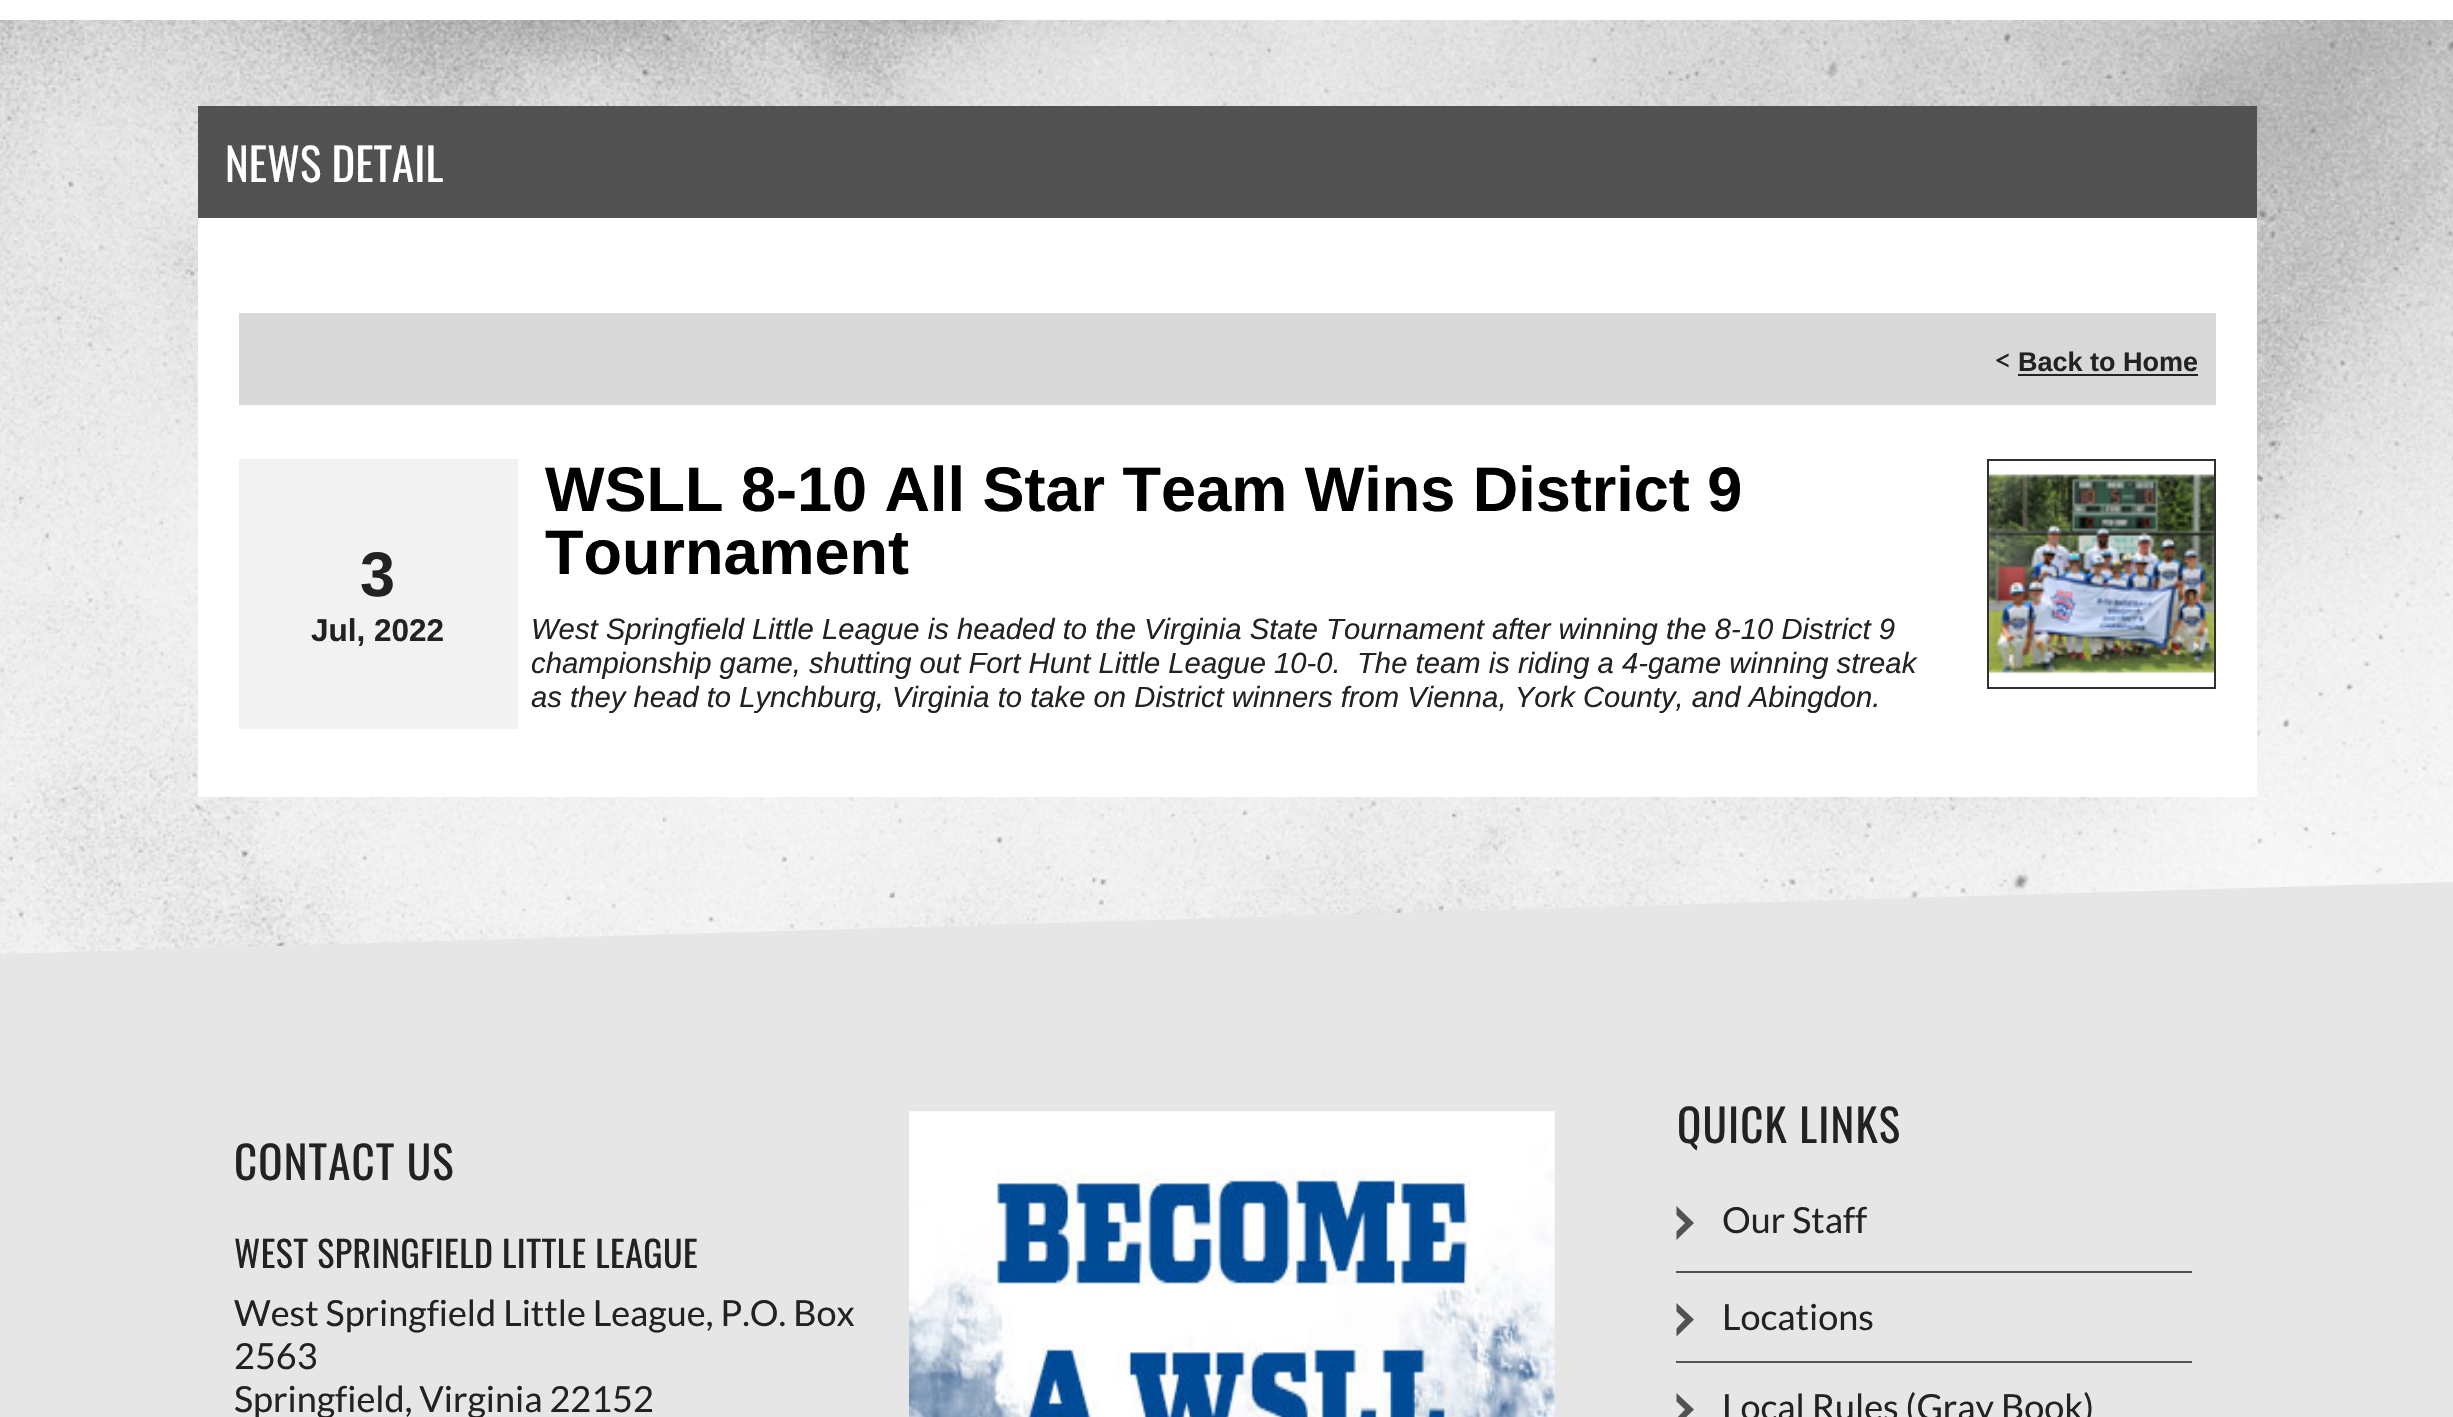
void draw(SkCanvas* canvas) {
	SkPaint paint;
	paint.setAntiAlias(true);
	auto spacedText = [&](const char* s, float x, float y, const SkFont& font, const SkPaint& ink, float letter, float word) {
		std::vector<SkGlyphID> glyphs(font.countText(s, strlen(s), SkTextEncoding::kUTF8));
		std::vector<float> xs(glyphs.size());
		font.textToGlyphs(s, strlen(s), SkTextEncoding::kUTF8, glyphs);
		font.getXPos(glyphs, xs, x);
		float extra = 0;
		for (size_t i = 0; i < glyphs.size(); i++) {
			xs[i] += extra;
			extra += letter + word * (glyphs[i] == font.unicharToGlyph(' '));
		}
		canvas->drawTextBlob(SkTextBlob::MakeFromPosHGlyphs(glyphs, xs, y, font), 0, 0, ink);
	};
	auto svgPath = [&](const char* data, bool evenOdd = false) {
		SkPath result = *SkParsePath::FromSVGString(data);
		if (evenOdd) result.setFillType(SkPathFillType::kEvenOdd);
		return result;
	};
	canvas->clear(0xffffffff);
	canvas->drawImageRect(SkImages::DeferredFromEncodedData(SkData::MakeFromFileName("img1.png")), SkRect::MakeXYWH(0, 20, 2453, 934), SkSamplingOptions());
	paint.setColor(0xff525252);
	canvas->drawRect(SkRect::MakeXYWH(198, 106, 2059, 112), paint);
	SkFont f1(fontMgr->matchFamilyStyle("Oswald", SkFontStyle::Normal()), 45);
	f1.setSubpixel(true);
	paint.setColor(0xffffffff);
	canvas->drawString("NEWS DETAIL", 225, 182, f1, paint);
	canvas->drawRect(SkRect::MakeXYWH(198, 218, 2059, 579), paint);
	paint.setColor(0xffd8d8d8);
	canvas->drawRect(SkRect::MakeXYWH(239, 313, 1977, 92), paint);
	SkFont f2(fontMgr->matchFamilyStyle("Lato", SkFontStyle::Normal()), 31.5);
	f2.setSubpixel(true);
	paint.setColor(0xff222222);
	canvas->drawString("<", 1994, 371, f2, paint);
	SkFont f3(fontMgr->matchFamilyStyle("Liberation Sans", SkFontStyle::Bold()), 27);
	f3.setSubpixel(true);
	canvas->drawString("Back to Home", 2018, 371, f3, paint);
	canvas->drawRect(SkRect::MakeXYWH(2018, 374, 180, 2), paint);
	SkFont f4(fontMgr->matchFamilyStyle("Liberation Sans", SkFontStyle::Bold()), 63);
	f4.setSubpixel(true);
	paint.setColor(0xff000000);
	canvas->drawString("WSLL 8-10 All Star Team Wins District 9", 545, 511, f4, paint);
	canvas->drawString("Tournament", 545, 574, f4, paint);
	paint.setStroke(true);
	paint.setStrokeWidth(2);
	paint.setColor(0xff303030);
	canvas->drawRect(SkRect::MakeXYWH(1988, 460, 227, 228), paint);
	canvas->drawImageRect(SkImages::DeferredFromEncodedData(SkData::MakeFromFileName("img2.png")), SkRect::MakeXYWH(1989, 474, 225, 200), SkSamplingOptions());
	paint.setStroke(false);
	paint.setColor(0xfff2f2f2);
	canvas->drawRect(SkRect::MakeXYWH(239, 459, 279, 270), paint);
	paint.setColor(0xff222222);
	canvas->drawString("3", 360, 596, f4, paint);
	SkFont f5(fontMgr->matchFamilyStyle("Liberation Sans", SkFontStyle::Bold()), 31.5);
	f5.setSubpixel(true);
	canvas->drawString("Jul, 2022", 311, 641, f5, paint);
	SkFont f6(fontMgr->matchFamilyStyle("Liberation Sans", SkFontStyle::Italic()), 29.25);
	f6.setSubpixel(true);
	canvas->drawString("West Springfield Little League is headed to the Virginia State Tournament after winning the 8-10 District 9", 531, 639, f6, paint);
	canvas->drawString("championship game, shutting out Fort Hunt Little League 10-0.  The team is riding a 4-game winning streak", 531, 673, f6, paint);
	canvas->drawString("as they head to Lynchburg, Virginia to take on District winners from Vienna, York County, and Abingdon.", 531, 707, f6, paint);
	paint.setColor(0xffe6e6e6);
	canvas->drawPath(svgPath("M0 954V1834H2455V882Z"), paint);
	paint.setColor(0xff222222);
	spacedText("CONTACT US", 234, 1180, f1, paint, 1.1, 0);
	SkFont f7(fontMgr->matchFamilyStyle("Oswald", SkFontStyle::Normal()), 36);
	f7.setSubpixel(true);
	spacedText("WEST SPRINGFIELD LITTLE LEAGUE", 234, 1268, f7, paint, 0.45, 0);
	SkFont f8(fontMgr->matchFamilyStyle("Lato", SkFontStyle::Normal()), 36);
	f8.setSubpixel(true);
	canvas->drawString("West Springfield Little League, P.O. Box", 234, 1326, f8, paint);
	canvas->drawString("2563", 234, 1369, f8, paint);
	canvas->drawString("Springfield, Virginia 22152", 234, 1412, f8, paint);
	canvas->drawImageRect(SkImages::DeferredFromEncodedData(SkData::MakeFromFileName("img3.png")), SkRect::MakeXYWH(909, 1111, 646, 306), SkSamplingOptions());
	spacedText("QUICK LINKS", 1677, 1143, f1, paint, 1.1, 0);
	paint.setColor(0xff525252);
	canvas->drawRect(SkRect::MakeXYWH(1676, 1271, 516, 2), paint);
	canvas->drawPath(svgPath("M1676.5 1206L1694 1223L1676.5 1240V1231.5L1685 1223L1676.5 1215Z"), paint);
	paint.setColor(0xff222222);
	canvas->drawString("Our Staff", 1722, 1233, f8, paint);
	paint.setColor(0xff525252);
	canvas->drawRect(SkRect::MakeXYWH(1676, 1361, 516, 2), paint);
	canvas->drawPath(svgPath("M1676.5 1303L1694 1319.5L1676.5 1336.5V1328.5L1685 1319.5L1676.5 1311.5Z"), paint);
	paint.setColor(0xff222222);
	canvas->drawString("Locations", 1722, 1330, f8, paint);
	paint.setColor(0xff525252);
	canvas->drawPath(svgPath("M1676.5 1393L1694 1409.5L1676.5 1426.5V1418.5L1685 1409.5L1676.5 1401.5Z"), paint);
	paint.setColor(0xff222222);
	canvas->drawString("Local Rules (Gray Book)", 1722, 1420, f8, paint);
}
